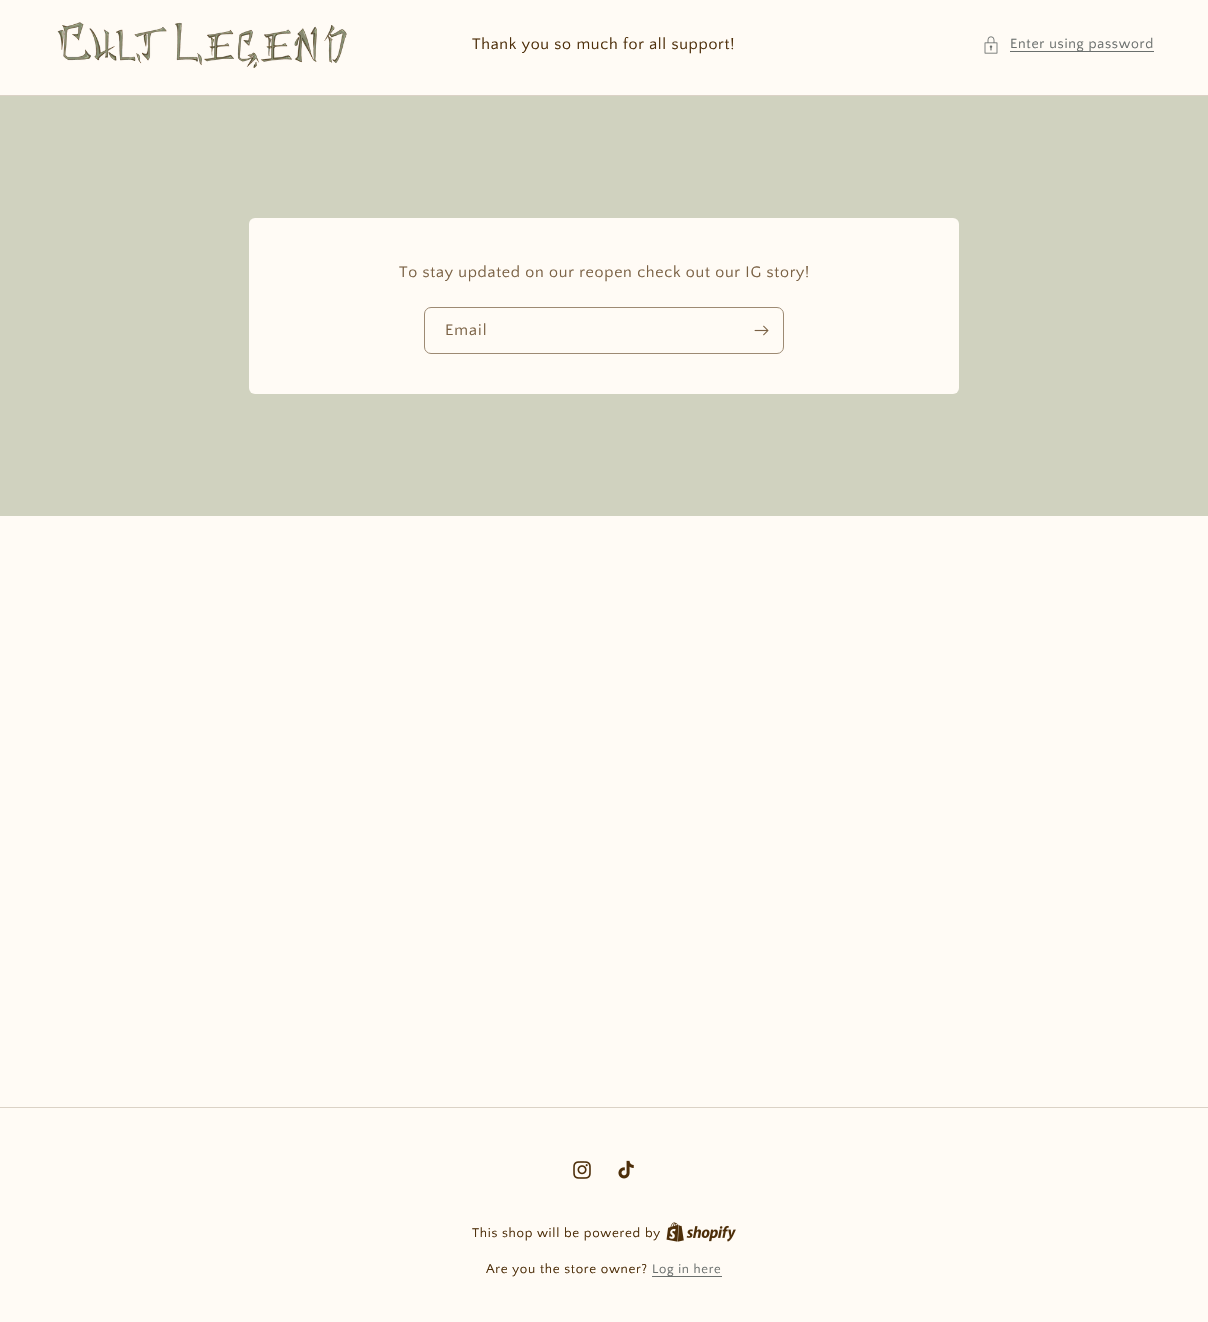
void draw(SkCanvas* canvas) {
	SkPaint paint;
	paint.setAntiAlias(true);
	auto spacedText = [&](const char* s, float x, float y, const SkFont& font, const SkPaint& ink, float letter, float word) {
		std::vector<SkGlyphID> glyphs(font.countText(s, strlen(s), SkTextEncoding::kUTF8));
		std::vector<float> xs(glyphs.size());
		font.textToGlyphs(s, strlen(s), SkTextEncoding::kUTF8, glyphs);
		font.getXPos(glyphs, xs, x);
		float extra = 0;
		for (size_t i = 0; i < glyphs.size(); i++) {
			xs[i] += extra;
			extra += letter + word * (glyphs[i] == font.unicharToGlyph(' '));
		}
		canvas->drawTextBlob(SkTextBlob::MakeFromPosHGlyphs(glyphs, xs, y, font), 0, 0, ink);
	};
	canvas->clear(0xfffffbf5);
	canvas->drawImageRect(SkImages::DeferredFromEncodedData(SkData::MakeFromFileName("img1.png")), SkRect::MakeXYWH(57, 22, 290, 46), SkSamplingOptions());
	SkFont f1(fontMgr->matchFamilyStyle("Quattrocento Sans", SkFontStyle::Normal()), 16);
	f1.setSubpixel(true);
	paint.setColor(0xff4d2e09);
	spacedText("Thank you so much for all support!", 472, 49, f1, paint, 0.7, 0);
	canvas->drawImageRect(SkImages::DeferredFromEncodedData(SkData::MakeFromFileName("img2.png")), SkRect::MakeXYWH(984, 36, 14, 18), SkSamplingOptions());
	paint.setColor(0xff6a6f6d);
	canvas->drawRect(SkRect::MakeXYWH(1010, 51, 144, 1), paint);
	SkFont f2(fontMgr->matchFamilyStyle("Quattrocento Sans", SkFontStyle::Normal()), 14);
	f2.setSubpixel(true);
	spacedText("Enter using password", 1010, 48, f2, paint, 0.7, 0);
	paint.setColor(0xffdbd2c6);
	canvas->drawRect(SkRect::MakeXYWH(0, 95, 1208, 1), paint);
	paint.setColor(0xffd0d2bf);
	canvas->drawRect(SkRect::MakeXYWH(0, 96, 1208, 420), paint);
	paint.setColor(0xfffffbf5);
	canvas->drawRoundRect(SkRect::MakeXYWH(249, 218, 710, 176), 6, 6, paint);
	paint.setColor(0xff7a6144);
	spacedText("To stay updated on our reopen check out our IG story!", 399, 277, f1, paint, 0.7, 0);
	paint.setStroke(true);
	paint.setStrokeWidth(1);
	paint.setColor(0xff9d8a73);
	canvas->drawRoundRect(SkRect::MakeXYWH(424.5, 307.5, 359, 46), 6.5, 6.5, paint);
	paint.setStroke(false);
	paint.setColor(0xff7a6144);
	spacedText("Email", 445, 335, f1, paint, 1, 0);
	canvas->drawImageRect(SkImages::DeferredFromEncodedData(SkData::MakeFromFileName("img3.png")), SkRect::MakeXYWH(754, 325, 15, 11), SkSamplingOptions());
	paint.setColor(0xffdbd2c6);
	canvas->drawRect(SkRect::MakeXYWH(0, 1107, 1208, 1), paint);
	canvas->drawImageRect(SkImages::DeferredFromEncodedData(SkData::MakeFromFileName("img4.png")), SkRect::MakeXYWH(573, 1161, 18, 18), SkSamplingOptions());
	canvas->drawImageRect(SkImages::DeferredFromEncodedData(SkData::MakeFromFileName("img5.png")), SkRect::MakeXYWH(618, 1160, 16, 19), SkSamplingOptions());
	SkFont f3(fontMgr->matchFamilyStyle("Quattrocento Sans", SkFontStyle::Normal()), 13.3);
	f3.setSubpixel(true);
	paint.setColor(0xff4d2e09);
	spacedText("This shop will be powered by", 472, 1237, f3, paint, 0.7, 0);
	canvas->drawImageRect(SkImages::DeferredFromEncodedData(SkData::MakeFromFileName("img6.png")), SkRect::MakeXYWH(666, 1222, 70, 20), SkSamplingOptions());
	spacedText("Are you the store owner?", 486, 1273, f3, paint, 0.7, 0);
	paint.setColor(0xff6a6f6d);
	canvas->drawRect(SkRect::MakeXYWH(652, 1276, 70, 1), paint);
	SkFont f4(fontMgr->matchFamilyStyle("Quattrocento Sans", SkFontStyle::Normal()), 13);
	f4.setSubpixel(true);
	spacedText("Log in here", 652, 1273, f4, paint, 0.7, 0);
}
